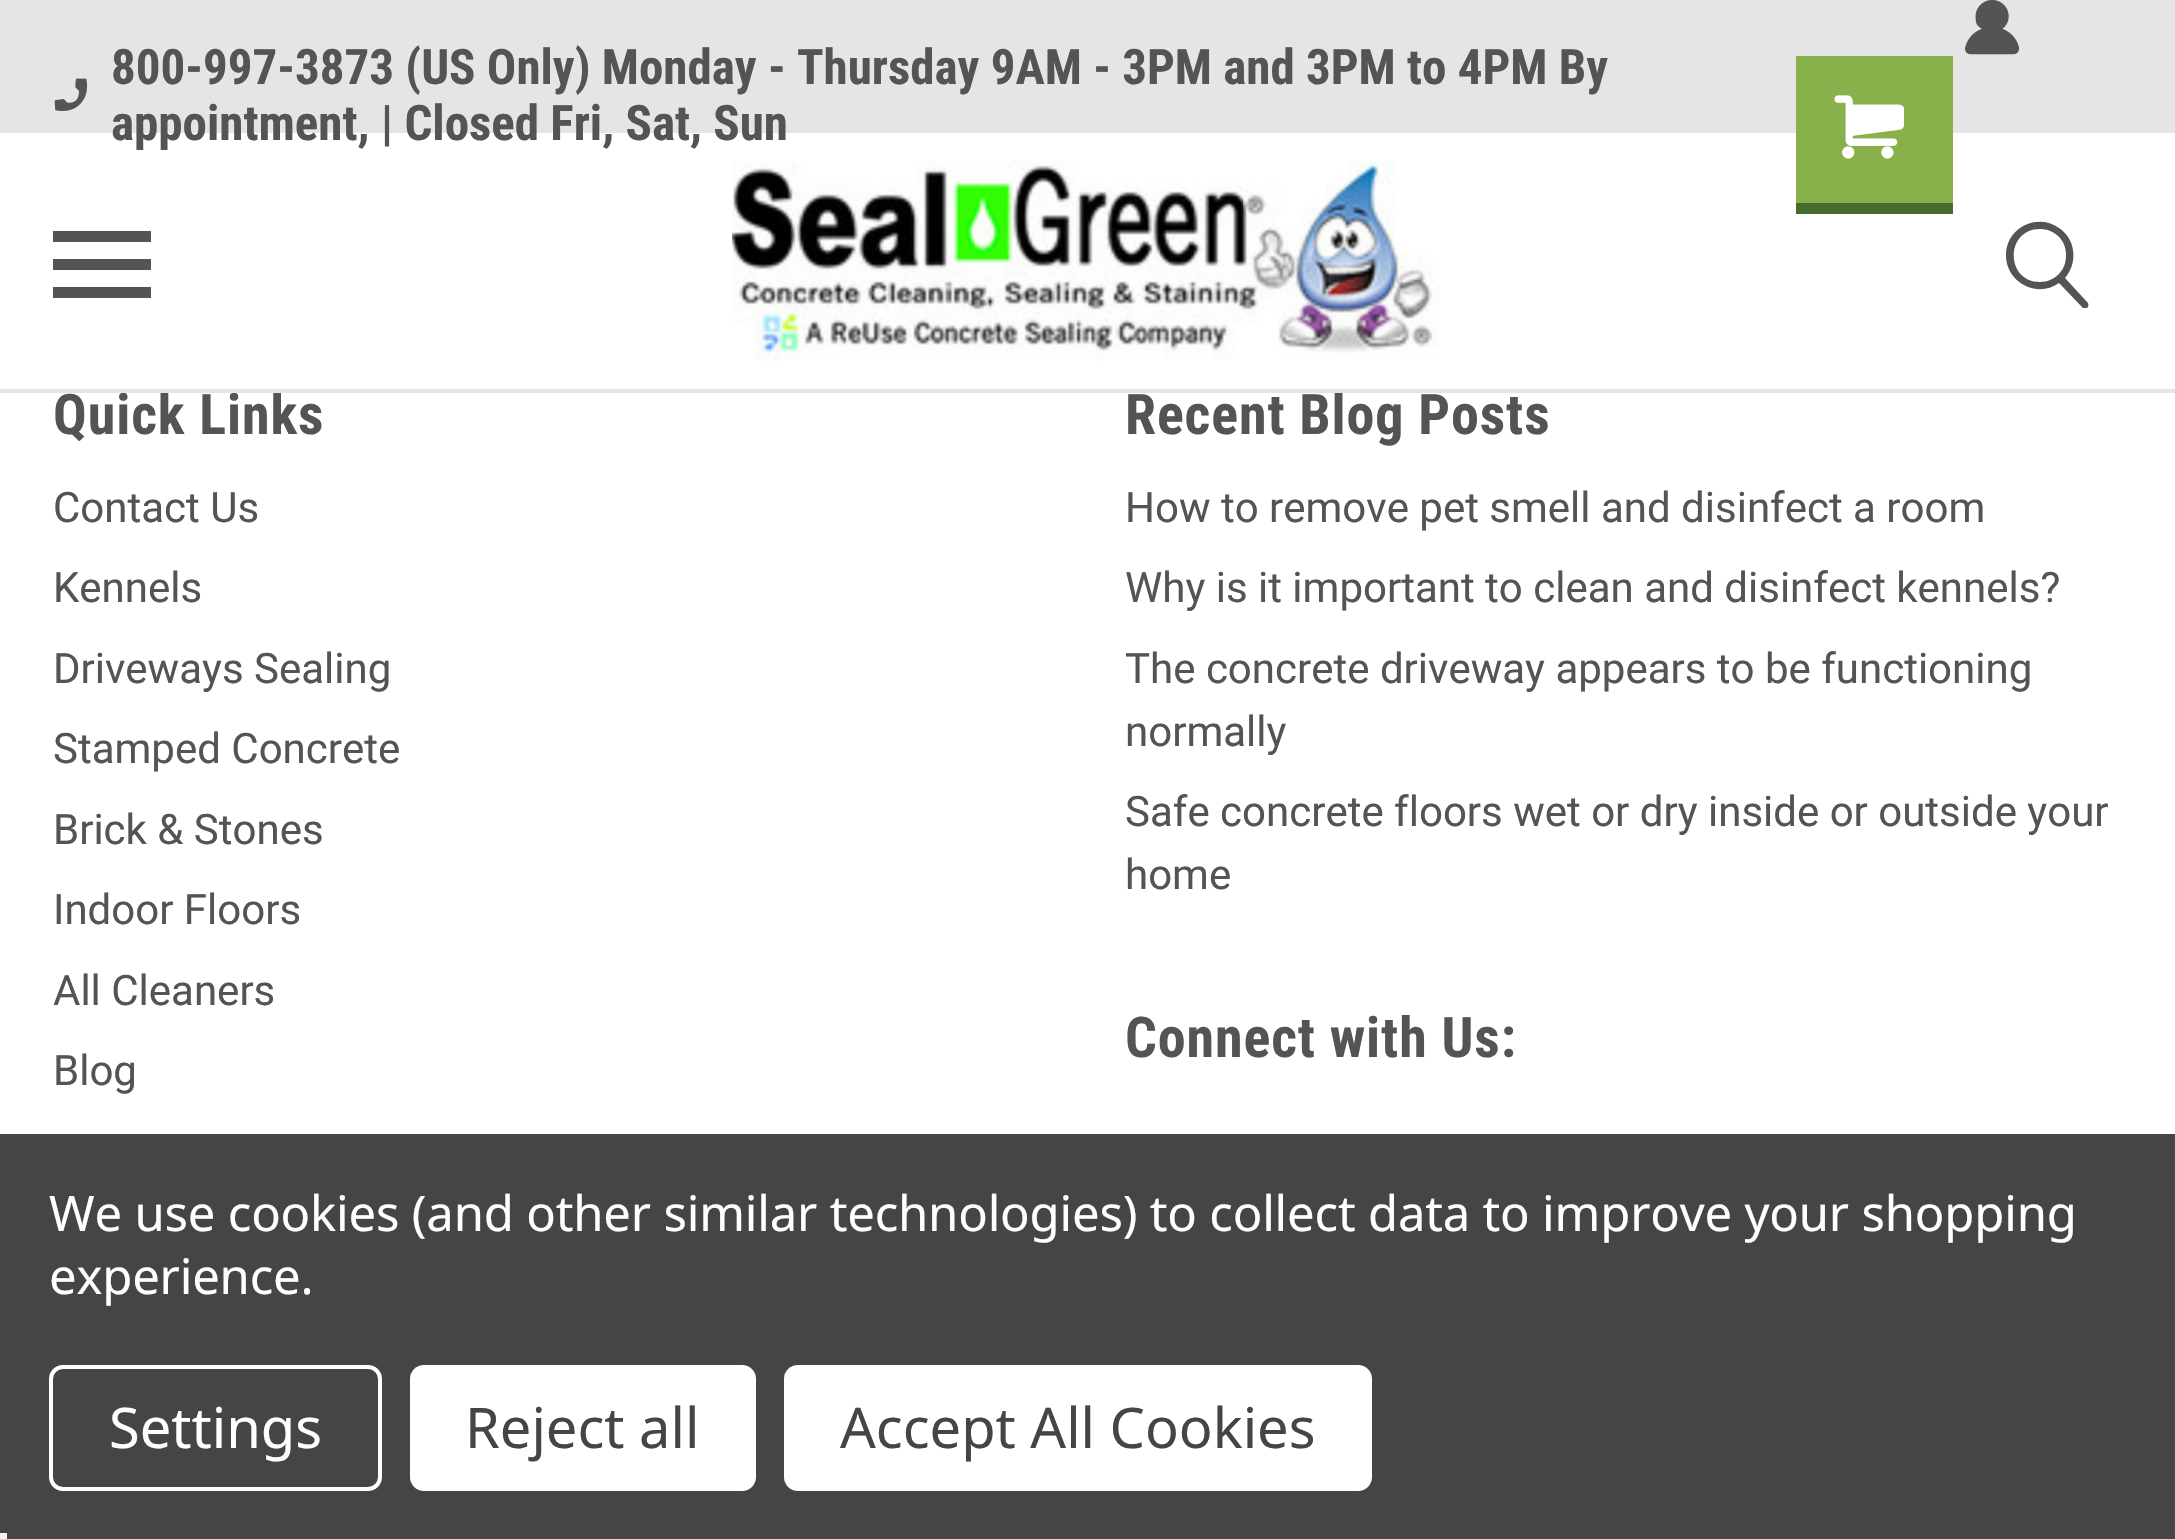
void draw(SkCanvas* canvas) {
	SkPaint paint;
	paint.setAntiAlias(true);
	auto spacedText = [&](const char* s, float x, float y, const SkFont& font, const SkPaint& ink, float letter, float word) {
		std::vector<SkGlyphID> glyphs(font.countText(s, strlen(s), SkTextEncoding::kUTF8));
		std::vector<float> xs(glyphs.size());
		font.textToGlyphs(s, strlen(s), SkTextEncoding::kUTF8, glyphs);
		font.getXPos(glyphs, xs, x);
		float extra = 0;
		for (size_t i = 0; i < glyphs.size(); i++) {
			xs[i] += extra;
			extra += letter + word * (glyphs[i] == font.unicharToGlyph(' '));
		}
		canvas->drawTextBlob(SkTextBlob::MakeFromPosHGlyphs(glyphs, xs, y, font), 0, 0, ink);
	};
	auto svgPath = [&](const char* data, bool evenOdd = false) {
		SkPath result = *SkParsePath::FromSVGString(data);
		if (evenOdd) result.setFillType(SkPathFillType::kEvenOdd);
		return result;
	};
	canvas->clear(0xffffffff);
	SkFont f1(fontMgr->matchFamilyStyle("Roboto Condensed", SkFontStyle::Bold()), 56);
	f1.setSubpixel(true);
	paint.setColor(0xff545454);
	spacedText("Quick Links", 53, 434, f1, paint, 0.9, 0);
	spacedText("Recent Blog Posts", 1125, 434, f1, paint, 0.9, 0);
	paint.setColor(0xffe5e5e5);
	canvas->drawRect(SkRect::MakeXYWH(0, 389, 2175, 4), paint);
	canvas->drawRect(SkRect::MakeXYWH(0, 0, 2175, 133), paint);
	canvas->drawImageRect(SkImages::DeferredFromEncodedData(SkData::MakeFromFileName("img1.png")), SkRect::MakeXYWH(54, 78, 34, 33), SkSamplingOptions());
	SkFont f2(fontMgr->matchFamilyStyle("Roboto Condensed", SkFontStyle::Bold()), 49);
	f2.setSubpixel(true);
	paint.setColor(0xff545454);
	canvas->drawString("800-997-3873 (US Only) Monday - Thursday 9AM - 3PM and 3PM to 4PM By", 111, 84, f2, paint);
	canvas->drawString("appointment, | Closed Fri, Sat, Sun", 111, 140, f2, paint);
	canvas->drawImageRect(SkImages::DeferredFromEncodedData(SkData::MakeFromFileName("img2.png")), SkRect::MakeXYWH(1965, 0, 55, 55), SkSamplingOptions());
	paint.setColor(0xff88b04b);
	canvas->drawRect(SkRect::MakeXYWH(1796, 56, 157, 147), paint);
	paint.setColor(0xff476a30);
	canvas->drawRect(SkRect::MakeXYWH(1796, 203, 157, 11), paint);
	canvas->drawImageRect(SkImages::DeferredFromEncodedData(SkData::MakeFromFileName("img3.png")), SkRect::MakeXYWH(1834, 95, 70, 64), SkSamplingOptions());
	paint.setColor(0xff545454);
	canvas->drawRect(SkRect::MakeXYWH(53, 259, 98, 11), paint);
	canvas->drawRect(SkRect::MakeXYWH(53, 231, 98, 11), paint);
	canvas->drawRect(SkRect::MakeXYWH(53, 287, 98, 11), paint);
	canvas->drawImageRect(SkImages::DeferredFromEncodedData(SkData::MakeFromFileName("img4.png")), SkRect::MakeXYWH(732, 160, 708, 201), SkSamplingOptions());
	canvas->save();
	canvas->clipRect(SkRect::MakeXYWH(1999, 217, 91, 91));
	canvas->drawPath(svgPath("M2085 309C2084 309 2083 308 2082 307L2059 283C2037 299 2005 282 2006 254C2007 227 2038 213 2059 228C2076 239 2078 263 2065 278L2088 303C2089 305 2088 309 2085 309ZM2040 229C2005 229 2005 282 2040 282C2054 282 2066 271 2066 256C2067 241 2055 229 2040 229Z"), paint);
	canvas->restore();
	SkFont f3(fontMgr->matchFamilyStyle("Roboto", SkFontStyle::Normal()), 42);
	f3.setSubpixel(true);
	canvas->drawString("Contact Us", 53, 522, f3, paint);
	canvas->drawString("Kennels", 53, 602, f3, paint);
	canvas->drawString("Driveways Sealing", 53, 683, f3, paint);
	canvas->drawString("Stamped Concrete", 53, 763, f3, paint);
	canvas->drawString("Brick & Stones", 53, 844, f3, paint);
	canvas->drawString("Indoor Floors", 53, 924, f3, paint);
	canvas->drawString("All Cleaners", 53, 1005, f3, paint);
	canvas->drawString("Blog", 53, 1085, f3, paint);
	canvas->drawString("How to remove pet smell and disinfect a room", 1125, 522, f3, paint);
	canvas->drawString("Why is it important to clean and disinfect kennels?", 1125, 602, f3, paint);
	canvas->drawString("The concrete driveway appears to be functioning", 1125, 683, f3, paint);
	canvas->drawString("normally", 1125, 746, f3, paint);
	canvas->drawString("Safe concrete floors wet or dry inside or outside your", 1125, 826, f3, paint);
	canvas->drawString("home", 1125, 889, f3, paint);
	spacedText("Connect with Us:", 1125, 1057, f1, paint, 0.9, 0);
	paint.setColor(0xff454545);
	canvas->drawRect(SkRect::MakeXYWH(0, 1134, 2175, 405), paint);
	SkFont f4(fontMgr->matchFamilyStyle("Noto Sans", SkFontStyle::Normal()), 49);
	f4.setSubpixel(true);
	paint.setColor(0xffffffff);
	spacedText("We use cookies (and other similar technologies) to collect data to improve your shopping", 49, 1231, f4, paint, -0.18, 0);
	spacedText("experience.", 49, 1294, f4, paint, -0.18, 0);
	paint.setStroke(true);
	paint.setStrokeWidth(4);
	canvas->drawRoundRect(SkRect::MakeXYWH(51, 1367, 329, 122), 12, 12, paint);
	SkFont f5(fontMgr->matchFamilyStyle("Noto Sans", SkFontStyle::Normal()), 56);
	f5.setSubpixel(true);
	paint.setStroke(false);
	canvas->drawString("Settings", 109, 1448, f5, paint);
	canvas->drawRoundRect(SkRect::MakeXYWH(410, 1365, 346, 126), 14, 14, paint);
	paint.setColor(0xff454545);
	canvas->drawString("Reject all", 465, 1448, f5, paint);
	paint.setColor(0xffffffff);
	canvas->drawRoundRect(SkRect::MakeXYWH(784, 1365, 588, 126), 14, 14, paint);
	paint.setColor(0xff454545);
	canvas->drawString("Accept All Cookies", 840, 1448, f5, paint);
	paint.setColor(0xfff5f5f5);
	canvas->drawRect(SkRect::MakeXYWH(0, 1533, 7, 6), paint);
}
